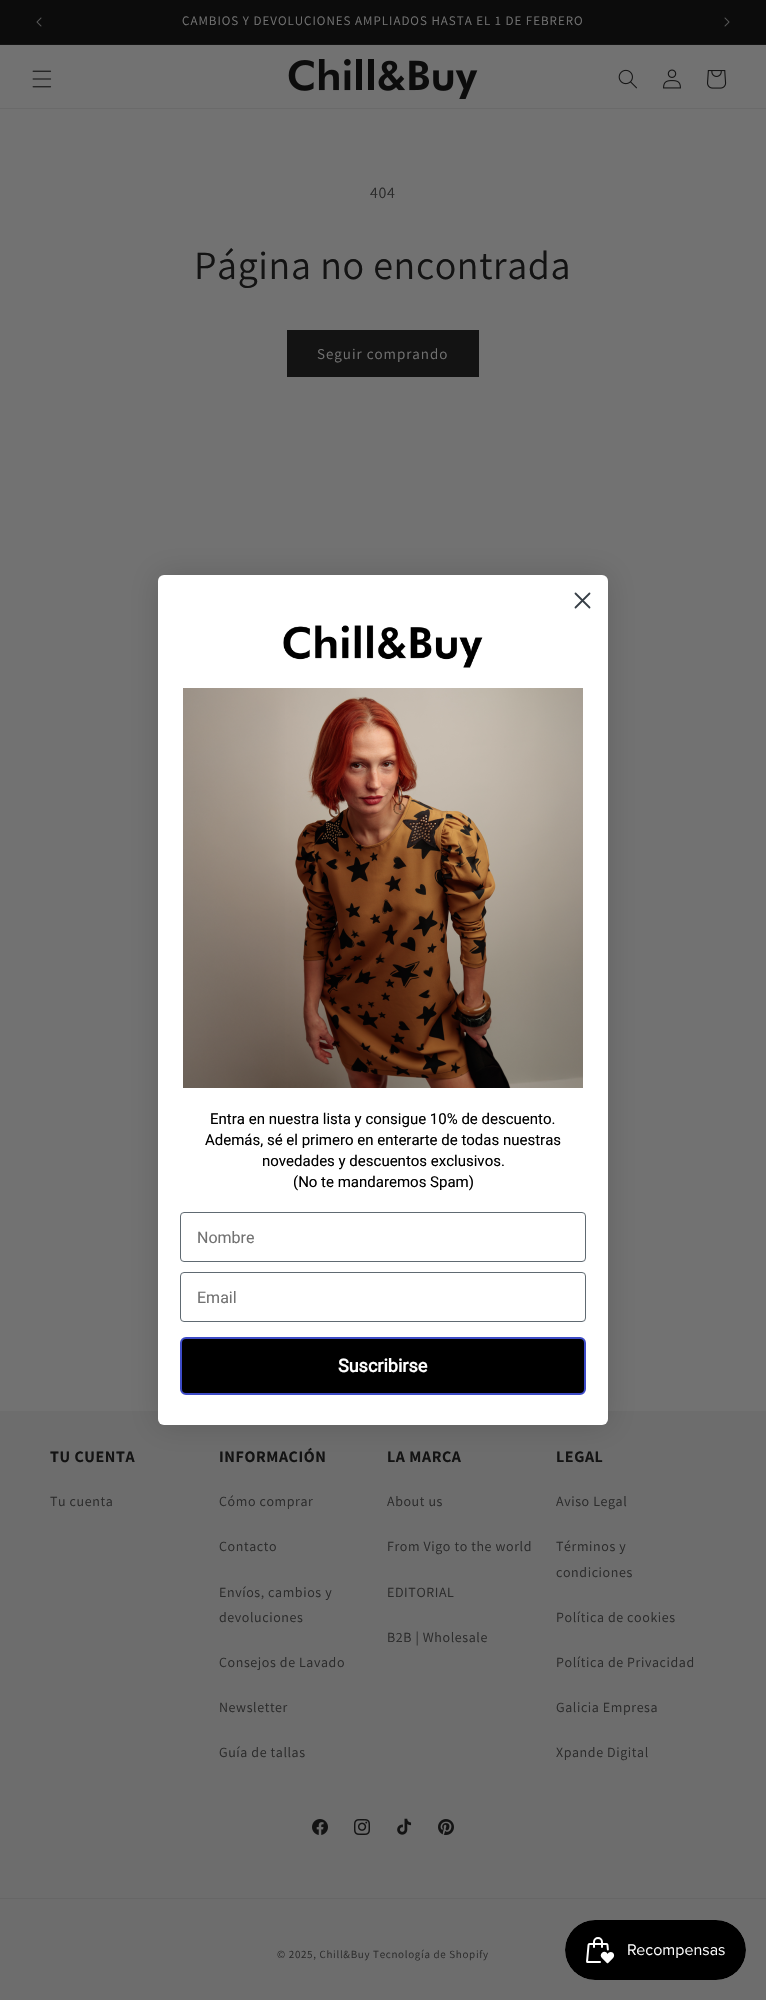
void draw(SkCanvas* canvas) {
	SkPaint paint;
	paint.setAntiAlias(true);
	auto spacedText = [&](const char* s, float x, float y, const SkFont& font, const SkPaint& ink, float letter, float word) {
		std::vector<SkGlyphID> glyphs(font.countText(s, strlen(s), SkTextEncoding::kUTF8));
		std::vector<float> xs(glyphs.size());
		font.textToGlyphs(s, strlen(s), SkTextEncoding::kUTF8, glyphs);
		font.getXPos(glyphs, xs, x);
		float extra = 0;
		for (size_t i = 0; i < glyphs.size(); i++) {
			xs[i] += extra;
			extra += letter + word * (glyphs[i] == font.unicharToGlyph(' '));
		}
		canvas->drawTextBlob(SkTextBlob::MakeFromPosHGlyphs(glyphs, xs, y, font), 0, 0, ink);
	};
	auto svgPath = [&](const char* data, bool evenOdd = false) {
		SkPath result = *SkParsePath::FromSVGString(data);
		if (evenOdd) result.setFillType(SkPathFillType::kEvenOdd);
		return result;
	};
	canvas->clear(0xff727272);
	paint.setColor(0xff0c0c0c);
	canvas->drawRect(SkRect::MakeXYWH(0, 0, 766, 44), paint);
	paint.setColor(0xff141414);
	canvas->drawRect(SkRect::MakeXYWH(0, 44, 766, 1), paint);
	canvas->drawImageRect(SkImages::DeferredFromEncodedData(SkData::MakeFromFileName("img1.png")), SkRect::MakeXYWH(36, 17, 6, 10), SkSamplingOptions());
	SkFont f1(fontMgr->matchFamilyStyle("Assistant", SkFontStyle::Normal()), 13);
	f1.setSubpixel(true);
	paint.setColor(0xff727272);
	spacedText("CAMBIOS Y DEVOLUCIONES AMPLIADOS HASTA EL 1 DE FEBRERO", 182, 25, f1, paint, 1, 0);
	canvas->drawImageRect(SkImages::DeferredFromEncodedData(SkData::MakeFromFileName("img2.png")), SkRect::MakeXYWH(724, 17, 6, 10), SkSamplingOptions());
	paint.setColor(0xff6a6a6a);
	canvas->drawRect(SkRect::MakeXYWH(0, 108, 766, 1), paint);
	canvas->drawImageRect(SkImages::DeferredFromEncodedData(SkData::MakeFromFileName("img3.png")), SkRect::MakeXYWH(32, 70, 20, 18), SkSamplingOptions());
	canvas->drawImageRect(SkImages::DeferredFromEncodedData(SkData::MakeFromFileName("img4.png")), SkRect::MakeXYWH(288, 59, 190, 40), SkSamplingOptions());
	canvas->drawImageRect(SkImages::DeferredFromEncodedData(SkData::MakeFromFileName("img5.png")), SkRect::MakeXYWH(618, 69, 19, 20), SkSamplingOptions());
	canvas->drawImageRect(SkImages::DeferredFromEncodedData(SkData::MakeFromFileName("img6.png")), SkRect::MakeXYWH(663, 69, 18, 20), SkSamplingOptions());
	canvas->drawImageRect(SkImages::DeferredFromEncodedData(SkData::MakeFromFileName("img7.png")), SkRect::MakeXYWH(707, 70, 20, 19), SkSamplingOptions());
	SkFont f2(fontMgr->matchFamilyStyle("Assistant", SkFontStyle::Normal()), 16);
	f2.setSubpixel(true);
	paint.setColor(0xff2b2b2b);
	spacedText("404", 370, 198, f2, paint, 0.6, 0);
	SkFont f3(fontMgr->matchFamilyStyle("Assistant", SkFontStyle::Normal()), 40);
	f3.setSubpixel(true);
	paint.setColor(0xff131313);
	spacedText("Página no encontrada", 194, 279, f3, paint, 0.6, 0);
	canvas->drawRect(SkRect::MakeXYWH(287, 330, 192, 47), paint);
	SkFont f4(fontMgr->matchFamilyStyle("Assistant", SkFontStyle::Normal()), 15);
	f4.setSubpixel(true);
	paint.setColor(0xff727272);
	spacedText("Seguir comprando", 317, 359, f4, paint, 1, 0);
	paint.setColor(0xff6d6d6d);
	canvas->drawRect(SkRect::MakeXYWH(0, 1411, 766, 589), paint);
	paint.setColor(0x26000000);
	paint.setMaskFilter(SkMaskFilter::MakeBlur(kNormal_SkBlurStyle, 15));
	canvas->drawRoundRect(SkRect::MakeXYWH(158, 575, 450, 850), 6, 6, paint);
	paint.setMaskFilter(nullptr);
	paint.setColor(0xffffffff);
	canvas->drawRoundRect(SkRect::MakeXYWH(158, 575, 450, 850), 6, 6, paint);
	paint.setStroke(true);
	paint.setStrokeWidth(1.8);
	paint.setStrokeCap(SkPaint::kRound_Cap);
	paint.setStrokeJoin(SkPaint::kRound_Join);
	paint.setColor(0xff373f47);
	canvas->drawPath(svgPath("M575.5 593.5L589.5 607.5M575.5 607.5L589.5 593.5Z"), paint);
	canvas->drawImageRect(SkImages::DeferredFromEncodedData(SkData::MakeFromFileName("img8.png")), SkRect::MakeXYWH(283, 625, 200, 43), SkSamplingOptions());
	canvas->drawImageRect(SkImages::DeferredFromEncodedData(SkData::MakeFromFileName("img9.png")), SkRect::MakeXYWH(183, 688, 400, 400), SkSamplingOptions());
	SkFont f5(fontMgr->matchFamilyStyle("Roboto", SkFontStyle::Normal()), 15);
	f5.setSubpixel(true);
	paint.setStroke(false);
	paint.setColor(0xff000000);
	canvas->drawString("Entra en nuestra lista y consigue 10% de descuento.", 210, 1124, f5, paint);
	canvas->drawString("Además, sé el primero en enterarte de todas nuestras", 205, 1145, f5, paint);
	canvas->drawString("novedades y descuentos exclusivos.", 262, 1166, f5, paint);
	canvas->drawString("(No te mandaremos Spam)", 293, 1187, f5, paint);
	paint.setStroke(true);
	paint.setStrokeWidth(1);
	paint.setStrokeCap(SkPaint::kButt_Cap);
	paint.setStrokeJoin(SkPaint::kMiter_Join);
	paint.setColor(0xff606a72);
	canvas->drawRoundRect(SkRect::MakeXYWH(180.5, 1212.5, 405, 49), 3.5, 3.5, paint);
	SkFont f6(fontMgr->matchFamilyStyle("Roboto", SkFontStyle::Normal()), 16);
	f6.setSubpixel(true);
	paint.setStroke(false);
	paint.setColor(0xff727272);
	canvas->drawString("Nombre", 197, 1243, f6, paint);
	paint.setStroke(true);
	paint.setColor(0xff606a72);
	canvas->drawRoundRect(SkRect::MakeXYWH(180.5, 1272.5, 405, 49), 3.5, 3.5, paint);
	paint.setStroke(false);
	paint.setColor(0xff727272);
	canvas->drawString("Email", 197, 1303, f6, paint);
	paint.setColor(0xff000000);
	canvas->drawRoundRect(SkRect::MakeXYWH(181, 1338, 404, 56), 5, 5, paint);
	paint.setStroke(true);
	paint.setStrokeWidth(2);
	paint.setColor(0xff3d4bc7);
	canvas->drawRoundRect(SkRect::MakeXYWH(181, 1338, 404, 56), 5, 5, paint);
	SkFont f7(fontMgr->matchFamilyStyle("Roboto", SkFontStyle::Bold()), 18);
	f7.setSubpixel(true);
	paint.setStroke(false);
	paint.setColor(0xffffffff);
	canvas->drawString("Suscribirse", 338, 1372, f7, paint);
	SkFont f8(fontMgr->matchFamilyStyle("Assistant", SkFontStyle::Bold()), 16);
	f8.setSubpixel(true);
	paint.setColor(0xff131313);
	spacedText("TU CUENTA", 50, 1462, f8, paint, 0.6, 0);
	SkFont f9(fontMgr->matchFamilyStyle("Assistant", SkFontStyle::Normal()), 14);
	f9.setSubpixel(true);
	paint.setColor(0xff2b2b2b);
	spacedText("Tu cuenta", 50, 1506, f9, paint, 0.6, 0);
	paint.setColor(0xff131313);
	spacedText("INFORMACIÓN", 219, 1462, f8, paint, 0.6, 0);
	paint.setColor(0xff2b2b2b);
	spacedText("Cómo comprar", 219, 1506, f9, paint, 0.6, 0);
	spacedText("Contacto", 219, 1551, f9, paint, 0.6, 0);
	spacedText("Envíos, cambios y", 219, 1597, f9, paint, 0.6, 0);
	spacedText("devoluciones", 219, 1622, f9, paint, 0.6, 0);
	spacedText("Consejos de Lavado", 219, 1667, f9, paint, 0.6, 0);
	spacedText("Newsletter", 219, 1712, f9, paint, 0.6, 0);
	spacedText("Guía de tallas", 219, 1757, f9, paint, 0.6, 0);
	paint.setColor(0xff131313);
	spacedText("LA MARCA", 387, 1462, f8, paint, 0.6, 0);
	paint.setColor(0xff2b2b2b);
	spacedText("About us", 387, 1506, f9, paint, 0.6, 0);
	spacedText("From Vigo to the world", 387, 1551, f9, paint, 0.6, 0);
	spacedText("EDITORIAL", 387, 1597, f9, paint, 0.6, 0);
	spacedText("B2B | Wholesale", 387, 1642, f9, paint, 0.6, 0);
	paint.setColor(0xff131313);
	spacedText("LEGAL", 556, 1462, f8, paint, 0.6, 0);
	paint.setColor(0xff2b2b2b);
	spacedText("Aviso Legal", 556, 1506, f9, paint, 0.6, 0);
	spacedText("Términos y", 556, 1551, f9, paint, 0.6, 0);
	spacedText("condiciones", 556, 1577, f9, paint, 0.6, 0);
	spacedText("Política de cookies", 556, 1622, f9, paint, 0.6, 0);
	spacedText("Política de Privacidad", 556, 1667, f9, paint, 0.6, 0);
	spacedText("Galicia Empresa", 556, 1712, f9, paint, 0.6, 0);
	spacedText("Xpande Digital", 556, 1757, f9, paint, 0.6, 0);
	canvas->drawImageRect(SkImages::DeferredFromEncodedData(SkData::MakeFromFileName("img10.png")), SkRect::MakeXYWH(312, 1819, 16, 16), SkSamplingOptions());
	canvas->drawImageRect(SkImages::DeferredFromEncodedData(SkData::MakeFromFileName("img11.png")), SkRect::MakeXYWH(354, 1819, 16, 16), SkSamplingOptions());
	canvas->drawImageRect(SkImages::DeferredFromEncodedData(SkData::MakeFromFileName("img12.png")), SkRect::MakeXYWH(397, 1818, 15, 17), SkSamplingOptions());
	canvas->drawImageRect(SkImages::DeferredFromEncodedData(SkData::MakeFromFileName("img13.png")), SkRect::MakeXYWH(438, 1819, 16, 16), SkSamplingOptions());
	paint.setColor(0xff666666);
	canvas->drawRect(SkRect::MakeXYWH(0, 1898, 766, 1), paint);
	SkFont f10(fontMgr->matchFamilyStyle("Assistant", SkFontStyle::Normal()), 11);
	f10.setSubpixel(true);
	paint.setColor(0xff2b2b2b);
	spacedText("© 2025, Chill&Buy Tecnología de Shopify", 277, 1958, f10, paint, 0.7, 0);
	canvas->drawImageRect(SkImages::DeferredFromEncodedData(SkData::MakeFromFileName("img14.png")), SkRect::MakeXYWH(565, 1920, 181, 60), SkSamplingOptions());
}
